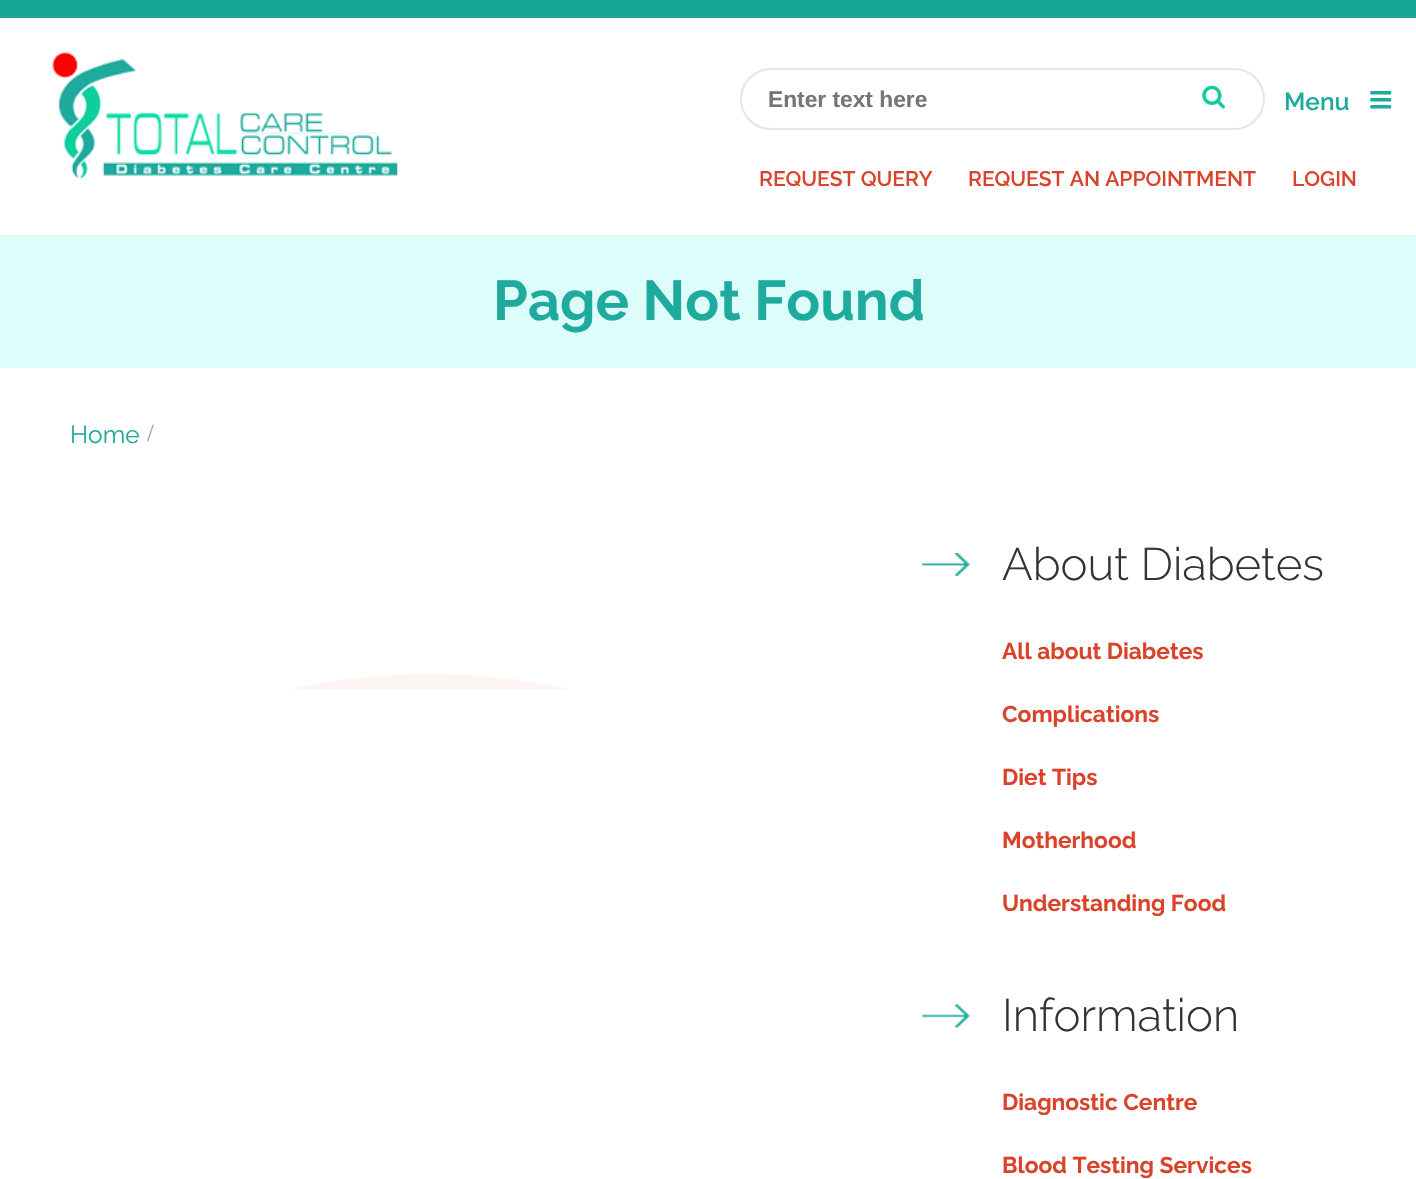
void draw(SkCanvas* canvas) {
	SkPaint paint;
	paint.setAntiAlias(true);
	canvas->clear(0xffffffff);
	paint.setColor(0xff17a797);
	canvas->drawRect(SkRect::MakeXYWH(0, 0, 1416, 18), paint);
	canvas->drawImageRect(SkImages::DeferredFromEncodedData(SkData::MakeFromFileName("img1.png")), SkRect::MakeXYWH(52, 52, 346, 127), SkSamplingOptions());
	paint.setStroke(true);
	paint.setStrokeWidth(2);
	paint.setColor(0xffe5e5e5);
	canvas->drawRoundRect(SkRect::MakeXYWH(741, 69, 523, 60), 30, 30, paint);
	SkFont f1(fontMgr->matchFamilyStyle("Liberation Sans", SkFontStyle::Bold()), 22.75);
	f1.setSubpixel(true);
	paint.setStroke(false);
	paint.setColor(0xff757575);
	canvas->drawString("Enter text here", 768, 107, f1, paint);
	canvas->drawImageRect(SkImages::DeferredFromEncodedData(SkData::MakeFromFileName("img2.png")), SkRect::MakeXYWH(1202, 85, 23, 24), SkSamplingOptions());
	SkFont f2(fontMgr->matchFamilyStyle("Raleway", SkFontStyle(600, SkFontStyle::kNormal_Width, SkFontStyle::kUpright_Slant)), 24.5);
	f2.setSubpixel(true);
	paint.setColor(0xff1eaa9d);
	canvas->drawString("Menu", 1284, 110, f2, paint);
	canvas->drawImageRect(SkImages::DeferredFromEncodedData(SkData::MakeFromFileName("img3.png")), SkRect::MakeXYWH(1370, 91, 22, 18), SkSamplingOptions());
	SkFont f3(fontMgr->matchFamilyStyle("Raleway", SkFontStyle(600, SkFontStyle::kNormal_Width, SkFontStyle::kUpright_Slant)), 21);
	f3.setSubpixel(true);
	paint.setColor(0xffda4329);
	canvas->drawString("REQUEST QUERY", 759, 186, f3, paint);
	canvas->drawString("REQUEST AN APPOINTMENT", 968, 186, f3, paint);
	canvas->drawString("LOGIN", 1292, 186, f3, paint);
	paint.setColor(0xffddfdfa);
	canvas->drawRect(SkRect::MakeXYWH(0, 235, 1416, 133), paint);
	SkFont f4(fontMgr->matchFamilyStyle("Raleway", SkFontStyle::Bold()), 56);
	f4.setSubpixel(true);
	paint.setColor(0xff1eaa9d);
	canvas->drawString("Page Not Found", 493, 320, f4, paint);
	SkFont f5(fontMgr->matchFamilyStyle("Raleway", SkFontStyle::Normal()), 24.5);
	f5.setSubpixel(true);
	canvas->drawString("Home", 70, 443, f5, paint);
	SkFont f6(fontMgr->matchFamilyStyle("Liberation Serif", SkFontStyle::Normal()), 24.5);
	f6.setSubpixel(true);
	paint.setColor(0xffa2a2a2);
	canvas->drawString("/", 147, 441, f6, paint);
	canvas->drawImageRect(SkImages::DeferredFromEncodedData(SkData::MakeFromFileName("img4.png")), SkRect::MakeXYWH(292, 674, 275, 16), SkSamplingOptions());
	canvas->drawImageRect(SkImages::DeferredFromEncodedData(SkData::MakeFromFileName("img5.png")), SkRect::MakeXYWH(922, 553, 48, 23), SkSamplingOptions());
	SkFont f7(fontMgr->matchFamilyStyle("Raleway", SkFontStyle(300, SkFontStyle::kNormal_Width, SkFontStyle::kUpright_Slant)), 45.5);
	f7.setSubpixel(true);
	paint.setColor(0xff333333);
	canvas->drawString("About Diabetes", 1002, 580, f7, paint);
	SkFont f8(fontMgr->matchFamilyStyle("Raleway", SkFontStyle::Bold()), 22.75);
	f8.setSubpixel(true);
	paint.setColor(0xffda4329);
	canvas->drawString("All about Diabetes", 1002, 659, f8, paint);
	canvas->drawString("Complications", 1002, 722, f8, paint);
	canvas->drawString("Diet Tips", 1002, 785, f8, paint);
	canvas->drawString("Motherhood", 1002, 848, f8, paint);
	canvas->drawString("Understanding Food", 1002, 911, f8, paint);
	canvas->drawImageRect(SkImages::DeferredFromEncodedData(SkData::MakeFromFileName("img6.png")), SkRect::MakeXYWH(922, 1004, 48, 24), SkSamplingOptions());
	paint.setColor(0xff333333);
	canvas->drawString("Information", 1002, 1031, f7, paint);
	paint.setColor(0xffda4329);
	canvas->drawString("Diagnostic Centre", 1002, 1110, f8, paint);
	canvas->drawString("Blood Testing Services", 1002, 1173, f8, paint);
}
